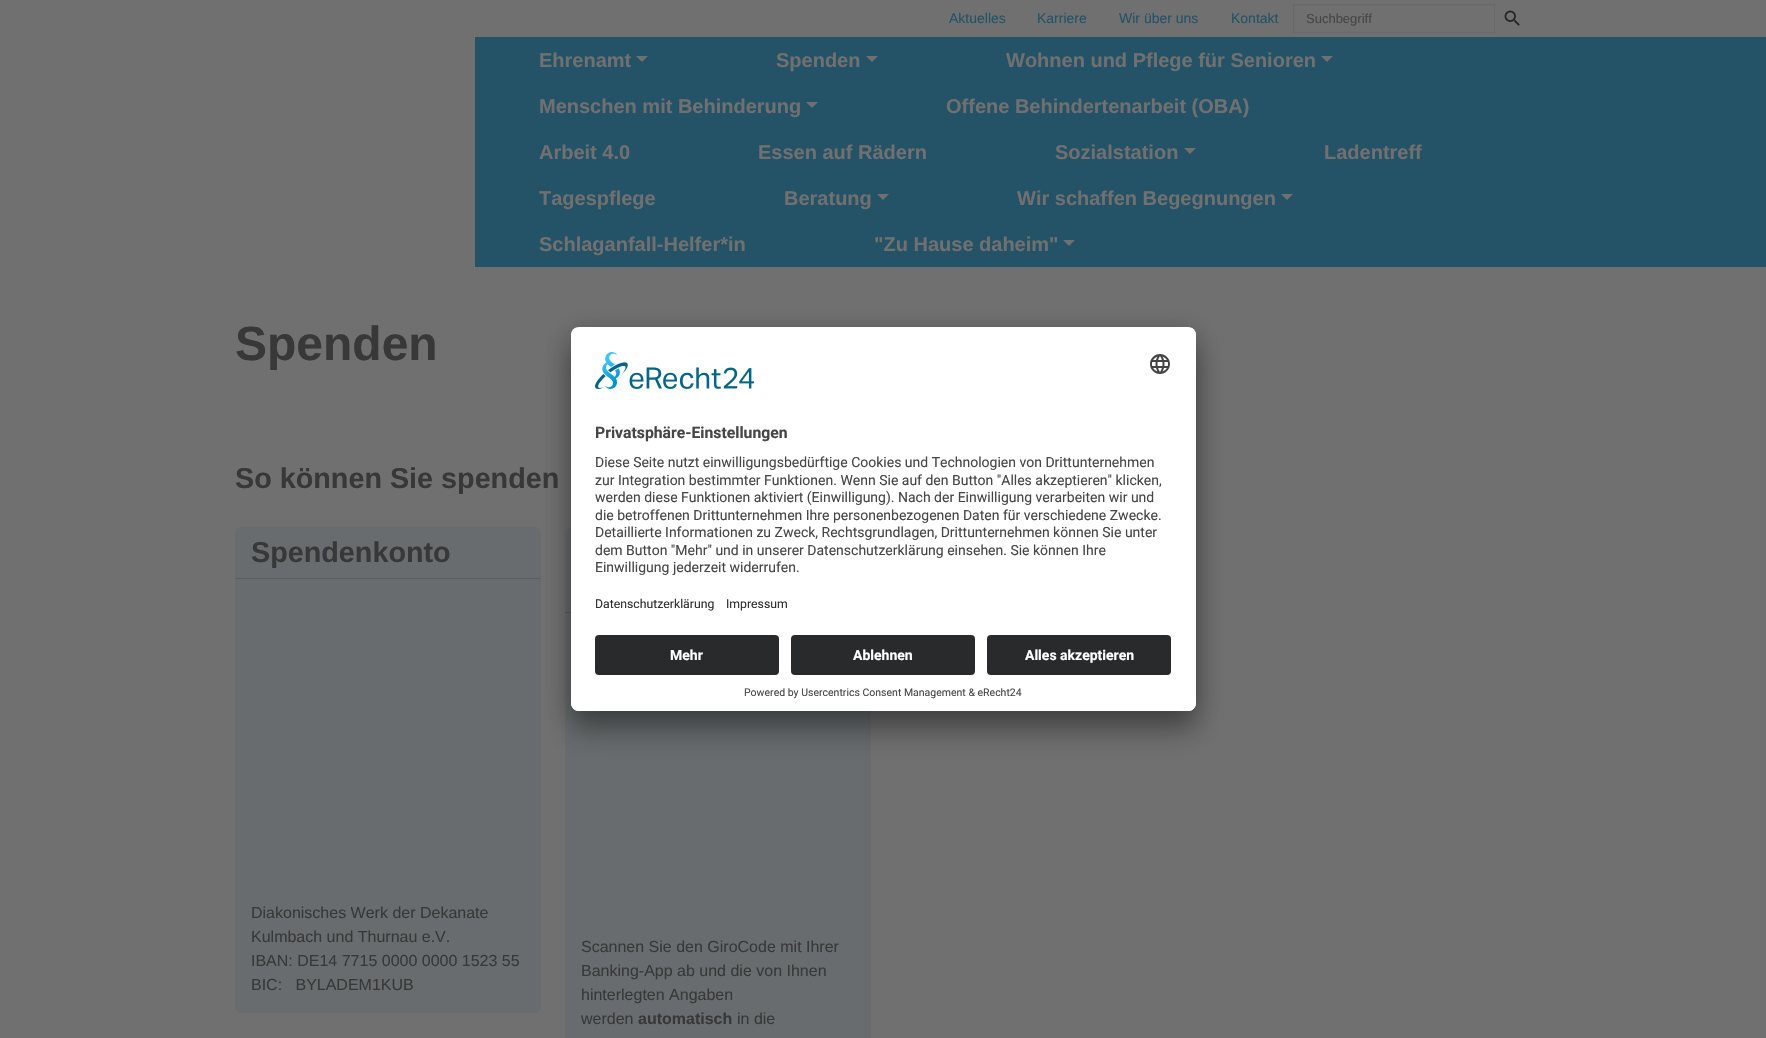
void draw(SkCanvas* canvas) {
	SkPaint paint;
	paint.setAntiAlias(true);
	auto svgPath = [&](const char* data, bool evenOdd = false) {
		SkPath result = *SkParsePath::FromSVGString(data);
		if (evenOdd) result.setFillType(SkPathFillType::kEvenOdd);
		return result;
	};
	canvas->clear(0xff707070);
	SkFont f1(fontMgr->matchFamilyStyle("Liberation Sans", SkFontStyle::Normal()), 14);
	f1.setSubpixel(true);
	paint.setColor(0xff245266);
	canvas->drawString("Aktuelles", 949, 23, f1, paint);
	canvas->drawString("Karriere", 1037, 23, f1, paint);
	canvas->drawString("Wir über uns", 1119, 23, f1, paint);
	canvas->drawString("Kontakt", 1231, 23, f1, paint);
	paint.setStroke(true);
	paint.setStrokeWidth(1);
	paint.setColor(0xff666869);
	canvas->drawRect(SkRect::MakeXYWH(1293.5, 4.5, 201, 28), paint);
	SkFont f2(fontMgr->matchFamilyStyle("Liberation Sans", SkFontStyle::Normal()), 13);
	f2.setSubpixel(true);
	paint.setStroke(false);
	paint.setColor(0xff464646);
	canvas->drawString("Suchbegriff", 1306, 23, f2, paint);
	canvas->drawImageRect(SkImages::DeferredFromEncodedData(SkData::MakeFromFileName("img1.png")), SkRect::MakeXYWH(1504, 10, 16, 16), SkSamplingOptions());
	paint.setColor(0xff245266);
	canvas->drawRect(SkRect::MakeXYWH(475, 37, 1291, 230), paint);
	SkFont f3(fontMgr->matchFamilyStyle("Liberation Sans", SkFontStyle::Bold()), 20);
	f3.setSubpixel(true);
	paint.setColor(0xff707070);
	canvas->drawString("Ehrenamt", 539, 67, f3, paint);
	canvas->drawPath(svgPath("M636 56H648L642 62Z"), paint);
	canvas->drawString("Spenden", 776, 67, f3, paint);
	canvas->drawPath(svgPath("M866 56H878L872 62Z"), paint);
	canvas->drawString("Wohnen und Pflege für Senioren", 1006, 67, f3, paint);
	canvas->drawPath(svgPath("M1321 56H1333L1327 62Z"), paint);
	canvas->drawString("Menschen mit Behinderung", 539, 113, f3, paint);
	canvas->drawPath(svgPath("M806 102H818L812 108Z"), paint);
	canvas->drawString("Offene Behindertenarbeit (OBA)", 946, 113, f3, paint);
	canvas->drawString("Arbeit 4.0", 539, 159, f3, paint);
	canvas->drawString("Essen auf Rädern", 758, 159, f3, paint);
	canvas->drawString("Sozialstation", 1055, 159, f3, paint);
	canvas->drawPath(svgPath("M1184 148H1196L1190 154Z"), paint);
	canvas->drawString("Ladentreff", 1324, 159, f3, paint);
	canvas->drawString("Tagespflege", 539, 205, f3, paint);
	canvas->drawString("Beratung", 784, 205, f3, paint);
	canvas->drawPath(svgPath("M877 194H889L883 200Z"), paint);
	canvas->drawString("Wir schaffen Begegnungen", 1017, 205, f3, paint);
	canvas->drawPath(svgPath("M1281 194H1293L1287 200Z"), paint);
	canvas->drawString("Schlaganfall-Helfer*in", 539, 251, f3, paint);
	canvas->drawString("\"Zu Hause daheim\"", 874, 251, f3, paint);
	canvas->drawPath(svgPath("M1063 240H1075L1069 246Z"), paint);
	SkFont f4(fontMgr->matchFamilyStyle("Liberation Sans", SkFontStyle::Bold()), 48);
	f4.setSubpixel(true);
	paint.setColor(0xff383838);
	canvas->drawString("Spenden", 235, 360, f4, paint);
	SkFont f5(fontMgr->matchFamilyStyle("Liberation Sans", SkFontStyle::Bold()), 28.75);
	f5.setSubpixel(true);
	canvas->drawString("So können Sie spenden", 235, 488, f5, paint);
	paint.setColor(0xff686c6e);
	canvas->drawRoundRect(SkRect::MakeXYWH(235, 527, 306, 486), 6, 6, paint);
	paint.setColor(0xff5b5e5f);
	canvas->drawRect(SkRect::MakeXYWH(235, 578, 306, 1), paint);
	paint.setColor(0xff383838);
	canvas->drawString("Spendenkonto", 251, 562, f5, paint);
	SkFont f6(fontMgr->matchFamilyStyle("Liberation Sans", SkFontStyle::Normal()), 16);
	f6.setSubpixel(true);
	canvas->drawString("Diakonisches Werk der Dekanate", 251, 918, f6, paint);
	canvas->drawString("Kulmbach und Thurnau e.V.", 251, 942, f6, paint);
	canvas->drawString("IBAN: DE14 7715 0000 0000 1523 55", 251, 966, f6, paint);
	canvas->drawString("BIC:   BYLADEM1KUB", 251, 990, f6, paint);
	paint.setColor(0xff686c6e);
	canvas->drawRoundRect(SkRect::MakeXYWH(565, 527, 306, 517), 6, 6, paint);
	paint.setColor(0xff5b5e5f);
	canvas->drawRect(SkRect::MakeXYWH(565, 612, 6, 1), paint);
	paint.setColor(0xff383838);
	canvas->drawString("Scannen Sie den GiroCode mit Ihrer", 581, 952, f6, paint);
	canvas->drawString("Banking-App ab und die von Ihnen", 581, 976, f6, paint);
	canvas->drawString("hinterlegten Angaben", 581, 1000, f6, paint);
	canvas->drawString("werden", 581, 1024, f6, paint);
	SkFont f7(fontMgr->matchFamilyStyle("Liberation Sans", SkFontStyle::Bold()), 16);
	f7.setSubpixel(true);
	canvas->drawString("automatisch", 638, 1024, f7, paint);
	canvas->drawString("in die", 737, 1024, f6, paint);
	paint.setColor(0x4d000000);
	paint.setMaskFilter(SkMaskFilter::MakeBlur(kNormal_SkBlurStyle, 14));
	canvas->drawRoundRect(SkRect::MakeXYWH(571, 347, 625, 384), 8, 8, paint);
	paint.setMaskFilter(nullptr);
	paint.setColor(0x38000000);
	paint.setMaskFilter(SkMaskFilter::MakeBlur(kNormal_SkBlurStyle, 13));
	canvas->drawRoundRect(SkRect::MakeXYWH(571, 332, 625, 384), 8, 8, paint);
	paint.setMaskFilter(nullptr);
	paint.setColor(0xffffffff);
	canvas->drawRoundRect(SkRect::MakeXYWH(571, 327, 625, 384), 8, 8, paint);
	canvas->save();
	canvas->clipPath(svgPath("M579 327H1188C1192.5 327 1196 330.5 1196 335V703C1196 707.5 1192.5 711 1188 711H579C574.5 711 571 707.5 571 703V335C571 330.5 574.5 327 579 327Z"), true);
	canvas->clipPath(svgPath("M579 327H1188C1192.5 327 1196 330.5 1196 335V627H571V335C571 330.5 574.5 327 579 327Z"), true);
	canvas->drawRect(SkRect::MakeXYWH(571, 328, 625, 299), paint);
	canvas->restore();
	canvas->drawImageRect(SkImages::DeferredFromEncodedData(SkData::MakeFromFileName("img2.png")), SkRect::MakeXYWH(595, 352, 159, 37), SkSamplingOptions());
	canvas->drawImageRect(SkImages::DeferredFromEncodedData(SkData::MakeFromFileName("img3.png")), SkRect::MakeXYWH(1150, 354, 20, 20), SkSamplingOptions());
	SkFont f8(fontMgr->matchFamilyStyle("Roboto", SkFontStyle::Bold()), 15.75);
	f8.setSubpixel(true);
	paint.setColor(0xff464646);
	canvas->drawString("Privatsphäre-Einstellungen", 595, 438, f8, paint);
	SkFont f9(fontMgr->matchFamilyStyle("Roboto", SkFontStyle::Normal()), 14);
	f9.setSubpixel(true);
	canvas->drawString("Diese Seite nutzt einwilligungsbedürftige Cookies und Technologien von Drittunternehmen", 595, 467, f9, paint);
	canvas->drawString("zur Integration bestimmter Funktionen. Wenn Sie auf den Button \"Alles akzeptieren\" klicken,", 595, 485, f9, paint);
	canvas->drawString("werden diese Funktionen aktiviert (Einwilligung). Nach der Einwilligung verarbeiten wir und", 595, 502, f9, paint);
	canvas->drawString("die betroffenen Drittunternehmen Ihre personenbezogenen Daten für verschiedene Zwecke.", 595, 520, f9, paint);
	canvas->drawString("Detaillierte Informationen zu Zweck, Rechtsgrundlagen, Drittunternehmen können Sie unter", 595, 537, f9, paint);
	canvas->drawString("dem Button \"Mehr\" und in unserer Datenschutzerklärung einsehen. Sie können Ihre", 595, 555, f9, paint);
	canvas->drawString("Einwilligung jederzeit widerrufen.", 595, 572, f9, paint);
	SkFont f10(fontMgr->matchFamilyStyle("Roboto", SkFontStyle::Normal()), 12.25);
	f10.setSubpixel(true);
	paint.setColor(0xff303030);
	canvas->drawString("Datenschutzerklärung", 595, 608, f10, paint);
	canvas->drawString("Impressum", 726, 608, f10, paint);
	paint.setColor(0xffffffff);
	canvas->drawPath(svgPath("M571 627H1196V703C1196 707.5 1192.5 711 1188 711H579C574.5 711 571 707.5 571 703Z"), paint);
	paint.setColor(0xff292a2b);
	canvas->drawRoundRect(SkRect::MakeXYWH(595, 635, 184, 40), 4, 4, paint);
	SkFont f11(fontMgr->matchFamilyStyle("Roboto", SkFontStyle::Bold()), 14);
	f11.setSubpixel(true);
	paint.setColor(0xffffffff);
	canvas->drawString("Mehr", 670, 660, f11, paint);
	paint.setColor(0xff292a2b);
	canvas->drawRoundRect(SkRect::MakeXYWH(791, 635, 184, 40), 4, 4, paint);
	paint.setColor(0xffffffff);
	canvas->drawString("Ablehnen", 853, 660, f11, paint);
	paint.setColor(0xff292a2b);
	canvas->drawRoundRect(SkRect::MakeXYWH(987, 635, 184, 40), 4, 4, paint);
	paint.setColor(0xffffffff);
	canvas->drawString("Alles akzeptieren", 1025, 660, f11, paint);
	SkFont f12(fontMgr->matchFamilyStyle("Roboto", SkFontStyle::Normal()), 10.5);
	f12.setSubpixel(true);
	paint.setColor(0xff464646);
	canvas->drawString("Powered by Usercentrics Consent Management & eRecht24", 744, 696, f12, paint);
}
